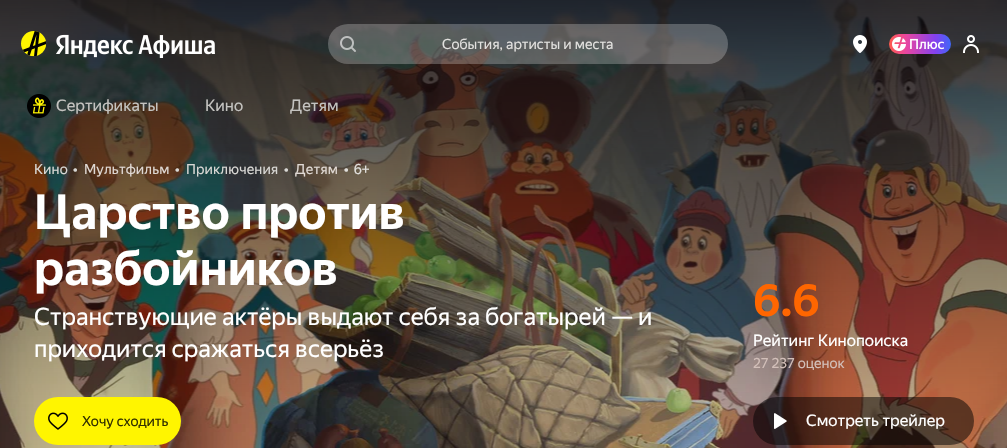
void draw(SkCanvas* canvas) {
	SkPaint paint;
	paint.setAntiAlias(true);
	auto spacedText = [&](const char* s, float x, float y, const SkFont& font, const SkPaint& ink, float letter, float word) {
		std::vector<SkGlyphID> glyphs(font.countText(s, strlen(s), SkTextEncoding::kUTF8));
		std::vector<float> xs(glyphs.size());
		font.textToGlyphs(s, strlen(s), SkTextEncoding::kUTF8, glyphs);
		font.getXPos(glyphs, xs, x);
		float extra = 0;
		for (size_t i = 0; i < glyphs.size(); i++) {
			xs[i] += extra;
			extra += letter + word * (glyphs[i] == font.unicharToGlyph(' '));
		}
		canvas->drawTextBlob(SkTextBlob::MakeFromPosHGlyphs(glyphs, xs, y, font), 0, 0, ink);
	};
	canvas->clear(0xffffffff);
	canvas->drawImageRect(SkImages::DeferredFromEncodedData(SkData::MakeFromFileName("img9.png")), SkRect::MakeXYWH(0, 0, 1007, 448), SkSamplingOptions());
	canvas->drawImageRect(SkImages::DeferredFromEncodedData(SkData::MakeFromFileName("img1.png")), SkRect::MakeXYWH(21, 31, 26, 26), SkSamplingOptions());
	canvas->drawImageRect(SkImages::DeferredFromEncodedData(SkData::MakeFromFileName("img2.png")), SkRect::MakeXYWH(56, 34, 159, 24), SkSamplingOptions());
	canvas->drawImageRect(SkImages::DeferredFromEncodedData(SkData::MakeFromFileName("img3.png")), SkRect::MakeXYWH(340, 36, 16, 16), SkSamplingOptions());
	SkFont f1(fontMgr->matchFamilyStyle("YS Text", SkFontStyle::Normal()), 14);
	f1.setSubpixel(true);
	paint.setColor(0xffd8d7d4);
	canvas->drawString("События, артисты и места", 442, 49, f1, paint);
	paint.setColor(0x3dffffff);
	canvas->drawRoundRect(SkRect::MakeXYWH(328, 24, 400, 40), 20, 20, paint);
	canvas->drawImageRect(SkImages::DeferredFromEncodedData(SkData::MakeFromFileName("img4.png")), SkRect::MakeXYWH(853, 35, 14, 18), SkSamplingOptions());
	{
		const SkColor colors[] = {0xffff5c4d, 0xffeb469f, 0xff8341ef, 0xff3f68f9};
		const float stops[] = {0, 0.27, 0.75, 1};
		const SkPoint ends[] = {{889, 44}, {951, 44}};
		paint.setShader(SkGradientShader::MakeLinear(ends, colors, stops, 4, SkTileMode::kClamp));
		paint.setAlpha(255);
	}
	canvas->drawRoundRect(SkRect::MakeXYWH(889, 34, 62, 20), 10, 10, paint);
	canvas->drawImageRect(SkImages::DeferredFromEncodedData(SkData::MakeFromFileName("img5.png")), SkRect::MakeXYWH(892, 37, 14, 14), SkSamplingOptions());
	canvas->drawImageRect(SkImages::DeferredFromEncodedData(SkData::MakeFromFileName("img6.png")), SkRect::MakeXYWH(910, 38, 34, 12), SkSamplingOptions());
	canvas->drawImageRect(SkImages::DeferredFromEncodedData(SkData::MakeFromFileName("img7.png")), SkRect::MakeXYWH(963, 35, 16, 18), SkSamplingOptions());
	canvas->drawImageRect(SkImages::DeferredFromEncodedData(SkData::MakeFromFileName("img8.png")), SkRect::MakeXYWH(27, 94, 24, 24), SkSamplingOptions());
	SkFont f2(fontMgr->matchFamilyStyle("YS Text", SkFontStyle::Normal()), 16);
	f2.setSubpixel(true);
	paint.setShader(nullptr);
	paint.setColor(0xffc4c3c0);
	canvas->drawString("Сертификаты", 56, 111, f2, paint);
	canvas->drawString("Кино", 205, 111, f2, paint);
	canvas->drawString("Детям", 290, 111, f2, paint);
	paint.setColor(0xffd8d7d4);
	spacedText("Кино", 34, 174, f1, paint, 0.1, 0);
	SkFont f3(fontMgr->matchFamilyStyle("YS Text", SkFontStyle::Bold()), 14);
	f3.setSubpixel(true);
	spacedText("•", 73, 174, f3, paint, 0.1, 0);
	paint.setColor(0xffdfd8d3);
	spacedText("Мультфильм", 84, 174, f1, paint, 0.1, 0);
	paint.setColor(0xffd8d7d4);
	spacedText("•", 175, 174, f3, paint, 0.1, 0);
	spacedText("Приключения", 186, 174, f1, paint, 0.1, 0);
	spacedText("•", 284, 174, f3, paint, 0.1, 0);
	paint.setColor(0xffdfd8d3);
	spacedText("Детям", 295, 174, f1, paint, 0.1, 0);
	paint.setColor(0xffe0dedb);
	canvas->drawString("•", 344, 174, f3, paint);
	canvas->drawString("6+", 354, 174, f1, paint);
	SkFont f4(fontMgr->matchFamilyStyle("YS Text", SkFontStyle::Bold()), 48);
	f4.setSubpixel(true);
	paint.setColor(0xffffffff);
	canvas->drawString("Царство против", 34, 229, f4, paint);
	canvas->drawString("разбойников", 34, 285, f4, paint);
	SkFont f5(fontMgr->matchFamilyStyle("YS Text", SkFontStyle::Normal()), 24);
	f5.setSubpixel(true);
	canvas->drawString("Странствующие актёры выдают себя за богатырей — и", 34, 325, f5, paint);
	canvas->drawString("приходится сражаться всерьёз", 34, 357, f5, paint);
	paint.setColor(0xfffff500);
	canvas->drawRoundRect(SkRect::MakeXYWH(34, 397, 147, 48), 24, 24, paint);
	canvas->drawImageRect(SkImages::DeferredFromEncodedData(SkData::MakeFromFileName("img10.png")), SkRect::MakeXYWH(48, 412, 20, 18), SkSamplingOptions());
	paint.setColor(0xff333100);
	spacedText("Хочу сходить", 82, 426, f1, paint, -0.1, 0);
	SkFont f6(fontMgr->matchFamilyStyle("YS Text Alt", SkFontStyle::Bold()), 44);
	f6.setSubpixel(true);
	paint.setColor(0xffff6600);
	canvas->drawString("6.6", 753, 316, f6, paint);
	paint.setColor(0xffffffff);
	canvas->drawString("Рейтинг Кинопоиска", 753, 346, f2, paint);
	paint.setColor(0xffd2bfb9);
	canvas->drawString("27 237 оценок", 753, 368, f1, paint);
	paint.setColor(0x80000000);
	canvas->drawRoundRect(SkRect::MakeXYWH(753, 397, 221, 48), 24, 24, paint);
	canvas->drawImageRect(SkImages::DeferredFromEncodedData(SkData::MakeFromFileName("img11.png")), SkRect::MakeXYWH(774, 413, 13, 16), SkSamplingOptions());
	paint.setColor(0xffffffff);
	canvas->drawString("Смотреть трейлер", 806, 426, f2, paint);
}
